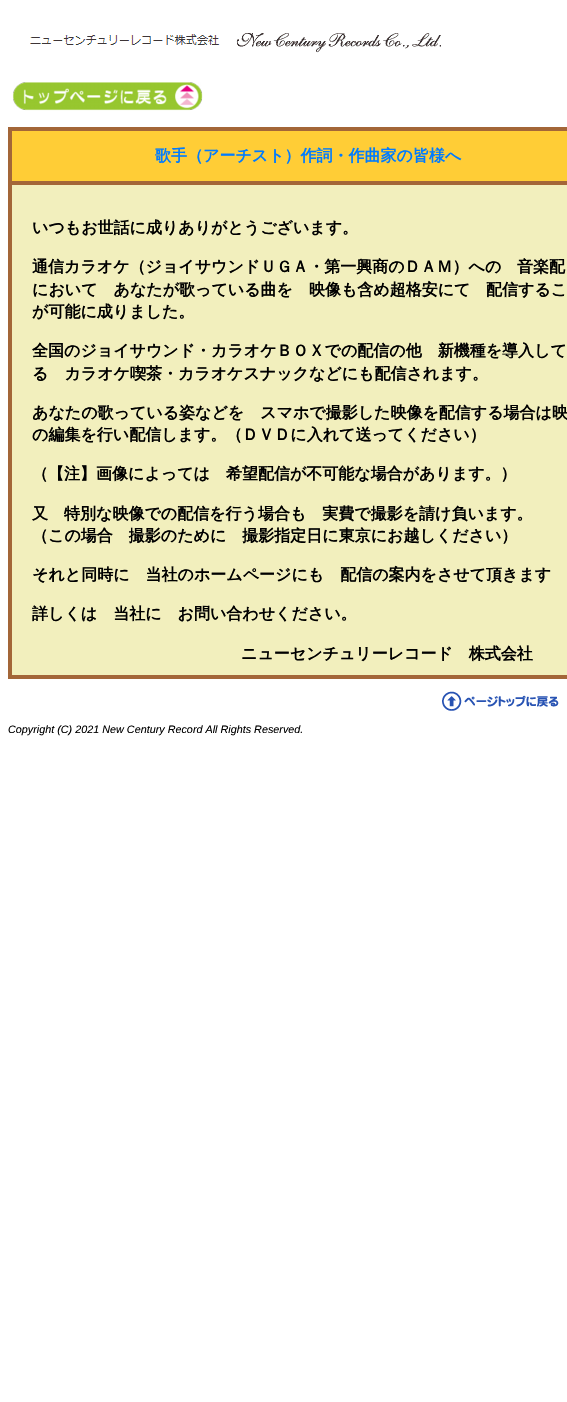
void draw(SkCanvas* canvas) {
	SkPaint paint;
	paint.setAntiAlias(true);
	canvas->clear(0xffffffff);
	canvas->drawImageRect(SkImages::DeferredFromEncodedData(SkData::MakeFromFileName("img1.png")), SkRect::MakeXYWH(30, 33, 411, 20), SkSamplingOptions());
	canvas->drawImageRect(SkImages::DeferredFromEncodedData(SkData::MakeFromFileName("img2.png")), SkRect::MakeXYWH(12, 82, 191, 29), SkSamplingOptions());
	paint.setColor(0xffffcd36);
	canvas->drawRect(SkRect::MakeXYWH(12, 131, 555, 50), paint);
	paint.setColor(0xffa36638);
	canvas->drawRect(SkRect::MakeXYWH(8, 127, 559, 4), paint);
	canvas->drawRect(SkRect::MakeXYWH(8, 181, 559, 4), paint);
	canvas->drawRect(SkRect::MakeXYWH(8, 675, 559, 4), paint);
	canvas->drawRect(SkRect::MakeXYWH(8, 181, 4, 498), paint);
	canvas->drawRect(SkRect::MakeXYWH(8, 127, 4, 58), paint);
	SkFont f1(fontMgr->matchFamilyStyle("WenQuanYi Zen Hei", SkFontStyle::Bold()), 16);
	f1.setSubpixel(true);
	paint.setColor(0xff007bff);
	canvas->drawString("歌手（アーチスト）作詞・作曲家の皆様へ", 155, 161, f1, paint);
	paint.setColor(0xfff2efbd);
	canvas->drawRect(SkRect::MakeXYWH(12, 185, 555, 490), paint);
	paint.setColor(0xff000000);
	canvas->drawString("いつもお世話に成りありがとうございます。", 32, 233, f1, paint);
	canvas->drawString("通信カラオケ（ジョイサウンドＵＧＡ・第一興商のＤＡＭ）への", 32, 272, f1, paint);
	canvas->drawString("音楽配", 517, 272, f1, paint);
	canvas->drawString("において　あなたが歌っている曲を　映像も含め超格安にて", 32, 295, f1, paint);
	canvas->drawString("配信するこ", 486, 295, f1, paint);
	canvas->drawString("が可能に成りました。", 32, 317, f1, paint);
	canvas->drawString("全国のジョイサウンド・カラオケＢＯＸでの配信の他　新機種を導入して", 32, 356, f1, paint);
	canvas->drawString("る　カラオケ喫茶・カラオケスナックなどにも配信されます。", 32, 379, f1, paint);
	canvas->drawString("あなたの歌っている姿などを　スマホで撮影した映像を配信する場合は映", 32, 418, f1, paint);
	canvas->drawString("の編集を行い配信します。（ＤＶＤに入れて送ってください）", 32, 440, f1, paint);
	canvas->drawString("（【注】画像によっては　希望配信が不可能な場合があります。）", 32, 479, f1, paint);
	canvas->drawString("又　特別な映像での配信を行う場合も　実費で撮影を請け負います。", 32, 519, f1, paint);
	canvas->drawString("（この場合　撮影のために　撮影指定日に東京にお越しください）", 32, 541, f1, paint);
	canvas->drawString("それと同時に　当社のホームページにも　配信の案内をさせて頂きます", 32, 580, f1, paint);
	canvas->drawString("詳しくは　当社に　お問い合わせください。", 32, 619, f1, paint);
	canvas->drawString("ニューセンチュリーレコード　株式会社", 241, 659, f1, paint);
	canvas->drawImageRect(SkImages::DeferredFromEncodedData(SkData::MakeFromFileName("img3.png")), SkRect::MakeXYWH(442, 691, 117, 20), SkSamplingOptions());
	SkFont f2(fontMgr->matchFamilyStyle("Liberation Sans", SkFontStyle::Italic()), 10.8);
	f2.setSubpixel(true);
	canvas->drawString("Copyright (C) 2021 New Century Record All Rights Reserved.", 8, 733, f2, paint);
}
